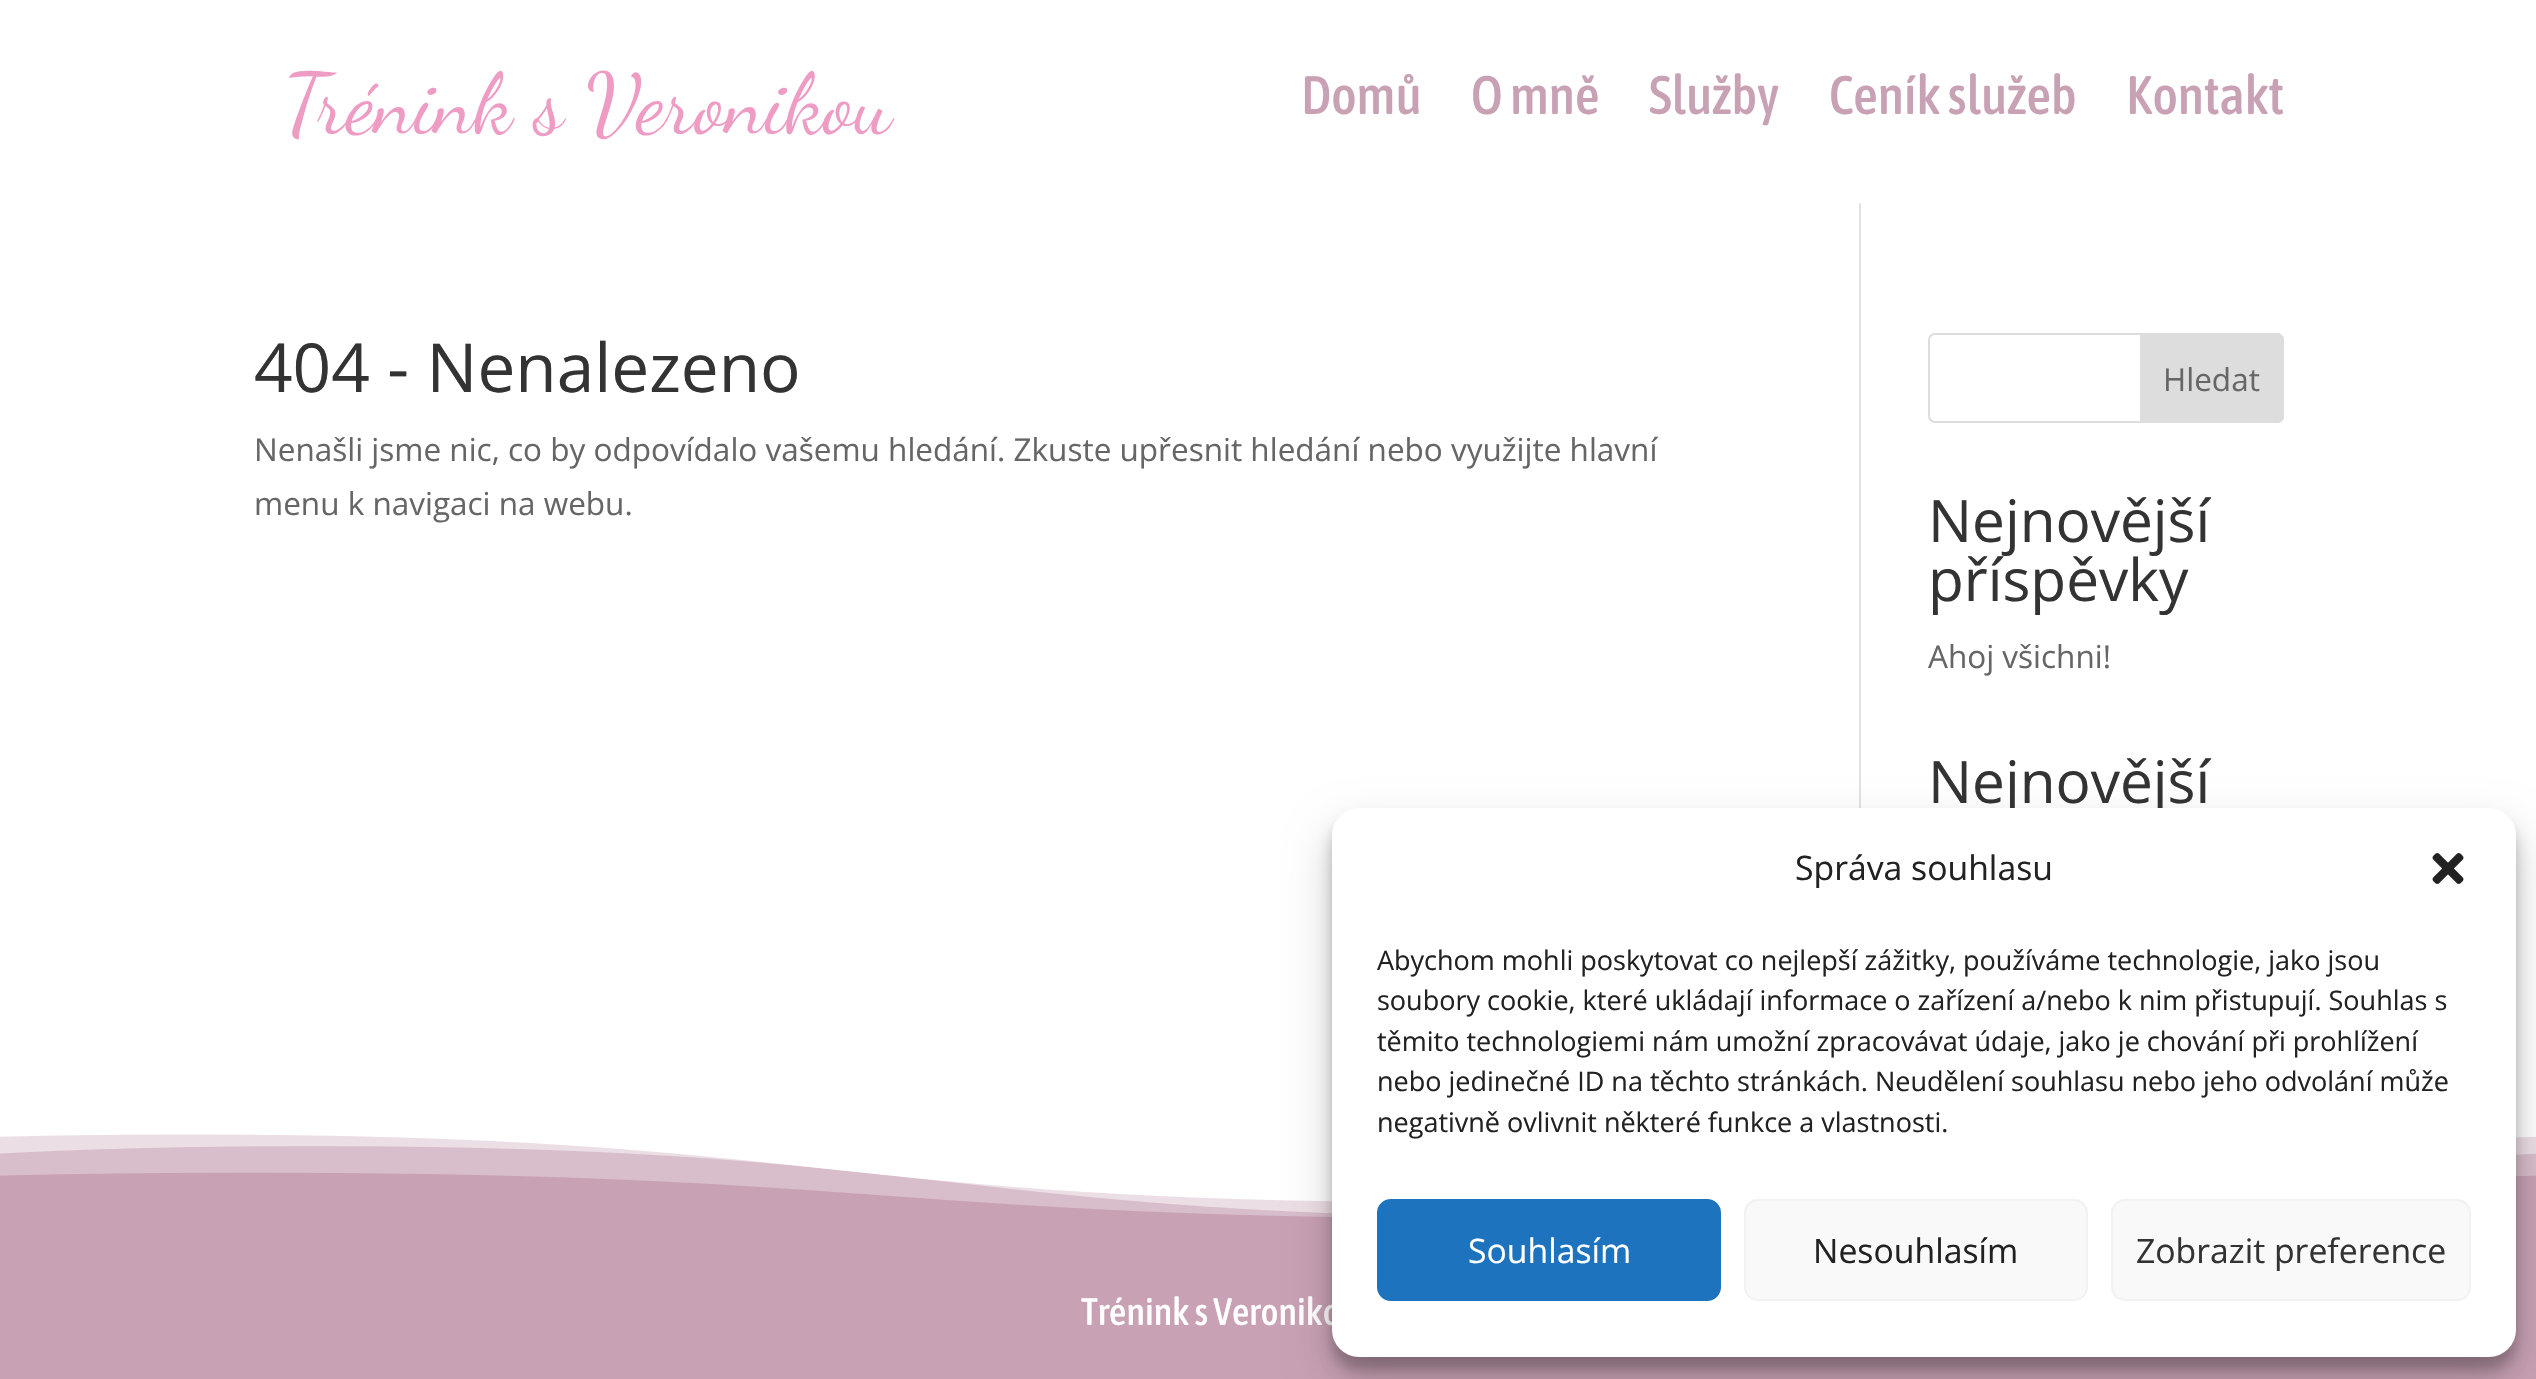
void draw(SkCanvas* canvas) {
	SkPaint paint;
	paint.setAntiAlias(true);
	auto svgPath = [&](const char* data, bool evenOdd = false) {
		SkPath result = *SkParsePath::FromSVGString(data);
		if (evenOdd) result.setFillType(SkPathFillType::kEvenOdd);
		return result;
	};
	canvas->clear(0xffffffff);
	canvas->drawImageRect(SkImages::DeferredFromEncodedData(SkData::MakeFromFileName("img1.png")), SkRect::MakeXYWH(289, 70, 606, 70), SkSamplingOptions());
	SkFont f1(fontMgr->matchFamilyStyle("Asap Condensed", SkFontStyle(500, SkFontStyle::kNormal_Width, SkFontStyle::kUpright_Slant)), 54);
	f1.setSubpixel(true);
	paint.setColor(0xffc8a1b4);
	canvas->drawString("Domů", 1301, 114, f1, paint);
	canvas->drawString("O mně", 1471, 114, f1, paint);
	canvas->drawString("Služby", 1649, 114, f1, paint);
	canvas->drawString("Ceník služeb", 1829, 114, f1, paint);
	canvas->drawString("Kontakt", 2126, 114, f1, paint);
	paint.setColor(0xffe2e2e2);
	canvas->drawRect(SkRect::MakeXYWH(1859, 203, 2, 605), paint);
	SkFont f2(fontMgr->matchFamilyStyle("Open Sans", SkFontStyle::Normal()), 67.5);
	f2.setSubpixel(true);
	paint.setColor(0xff333333);
	canvas->drawString("404 - Nenalezeno", 254, 392, f2, paint);
	SkFont f3(fontMgr->matchFamilyStyle("Open Sans", SkFontStyle::Normal()), 31.5);
	f3.setSubpixel(true);
	paint.setColor(0xff666666);
	canvas->drawString("Nenašli jsme nic, co by odpovídalo vašemu hledání. Zkuste upřesnit hledání nebo využijte hlavní", 254, 461, f3, paint);
	canvas->drawString("menu k navigaci na webu.", 254, 515, f3, paint);
	paint.setStroke(true);
	paint.setStrokeWidth(2);
	paint.setColor(0xffdddddd);
	canvas->drawRoundRect(SkRect::MakeXYWH(1929, 334, 354, 88), 6, 6, paint);
	paint.setStroke(false);
	canvas->drawPath(svgPath("M2141 334H2277C2280.5 334 2283 336.5 2283 340V416C2283 419.5 2280.5 422 2277 422H2141Z"), paint);
	paint.setStroke(true);
	canvas->drawPath(svgPath("M2141 334H2277C2280.5 334 2283 336.5 2283 340V416C2283 419.5 2280.5 422 2277 422H2141Z"), paint);
	paint.setStroke(false);
	paint.setColor(0xff666666);
	canvas->drawString("Hledat", 2163, 391, f3, paint);
	SkFont f4(fontMgr->matchFamilyStyle("Open Sans", SkFontStyle::Normal()), 58.5);
	f4.setSubpixel(true);
	paint.setColor(0xff333333);
	canvas->drawString("Nejnovější", 1928, 542, f4, paint);
	canvas->drawString("příspěvky", 1928, 601, f4, paint);
	paint.setColor(0xff666666);
	canvas->drawString("Ahoj všichni!", 1928, 668, f3, paint);
	paint.setColor(0xff333333);
	canvas->drawString("Nejnovější", 1928, 803, f4, paint);
	paint.setColor(0xffc8a1b4);
	canvas->drawRect(SkRect::MakeXYWH(0, 1134, 2536, 245), paint);
	canvas->drawImageRect(SkImages::DeferredFromEncodedData(SkData::MakeFromFileName("img2.png")), SkRect::MakeXYWH(0, 1134, 2536, 83), SkSamplingOptions());
	SkFont f5(fontMgr->matchFamilyStyle("Asap Condensed", SkFontStyle(500, SkFontStyle::kNormal_Width, SkFontStyle::kUpright_Slant)), 38.25);
	f5.setSubpixel(true);
	paint.setColor(0xffffffff);
	canvas->drawString("Trénink s Veroniko", 1081, 1325, f5, paint);
	paint.setColor(0x3b000000);
	paint.setMaskFilter(SkMaskFilter::MakeBlur(kNormal_SkBlurStyle, 7));
	canvas->drawRoundRect(SkRect::MakeXYWH(1332, 821, 1184, 549), 27, 27, paint);
	paint.setMaskFilter(nullptr);
	paint.setColor(0x30000000);
	paint.setMaskFilter(SkMaskFilter::MakeBlur(kNormal_SkBlurStyle, 22.5));
	canvas->drawRoundRect(SkRect::MakeXYWH(1332, 830, 1184, 549), 27, 27, paint);
	paint.setMaskFilter(nullptr);
	paint.setColor(0xffffffff);
	canvas->drawRoundRect(SkRect::MakeXYWH(1332, 808, 1184, 549), 27, 27, paint);
	SkFont f6(fontMgr->matchFamilyStyle("Open Sans", SkFontStyle::Normal()), 33.75);
	f6.setSubpixel(true);
	paint.setColor(0xff222222);
	canvas->drawString("Správa souhlasu", 1795, 880, f6, paint);
	canvas->drawImageRect(SkImages::DeferredFromEncodedData(SkData::MakeFromFileName("img3.png")), SkRect::MakeXYWH(2432, 853, 32, 31), SkSamplingOptions());
	SkFont f7(fontMgr->matchFamilyStyle("Open Sans", SkFontStyle::Normal()), 27);
	f7.setSubpixel(true);
	canvas->drawString("Abychom mohli poskytovat co nejlepší zážitky, používáme technologie, jako jsou", 1377, 970, f7, paint);
	canvas->drawString("soubory cookie, které ukládají informace o zařízení a/nebo k nim přistupují. Souhlas s", 1377, 1010, f7, paint);
	canvas->drawString("těmito technologiemi nám umožní zpracovávat údaje, jako je chování při prohlížení", 1377, 1051, f7, paint);
	canvas->drawString("nebo jedinečné ID na těchto stránkách. Neudělení souhlasu nebo jeho odvolání může", 1377, 1091, f7, paint);
	canvas->drawString("negativně ovlivnit některé funkce a vlastnosti.", 1377, 1132, f7, paint);
	paint.setColor(0xff1e73be);
	canvas->drawRoundRect(SkRect::MakeXYWH(1378, 1200, 342, 100), 13, 13, paint);
	paint.setStroke(true);
	canvas->drawRoundRect(SkRect::MakeXYWH(1378, 1200, 342, 100), 13, 13, paint);
	paint.setStroke(false);
	paint.setColor(0xffffffff);
	canvas->drawString("Souhlasím", 1468, 1263, f6, paint);
	paint.setColor(0xfff9f9f9);
	canvas->drawRoundRect(SkRect::MakeXYWH(1745, 1200, 342, 100), 13, 13, paint);
	paint.setStroke(true);
	paint.setColor(0xfff2f2f2);
	canvas->drawRoundRect(SkRect::MakeXYWH(1745, 1200, 342, 100), 13, 13, paint);
	paint.setStroke(false);
	paint.setColor(0xff222222);
	canvas->drawString("Nesouhlasím", 1813, 1263, f6, paint);
	paint.setColor(0xfff9f9f9);
	canvas->drawRoundRect(SkRect::MakeXYWH(2112, 1200, 358, 100), 13, 13, paint);
	paint.setStroke(true);
	paint.setColor(0xfff2f2f2);
	canvas->drawRoundRect(SkRect::MakeXYWH(2112, 1200, 358, 100), 13, 13, paint);
	paint.setStroke(false);
	paint.setColor(0xff333333);
	canvas->drawString("Zobrazit preference", 2136, 1263, f6, paint);
}
